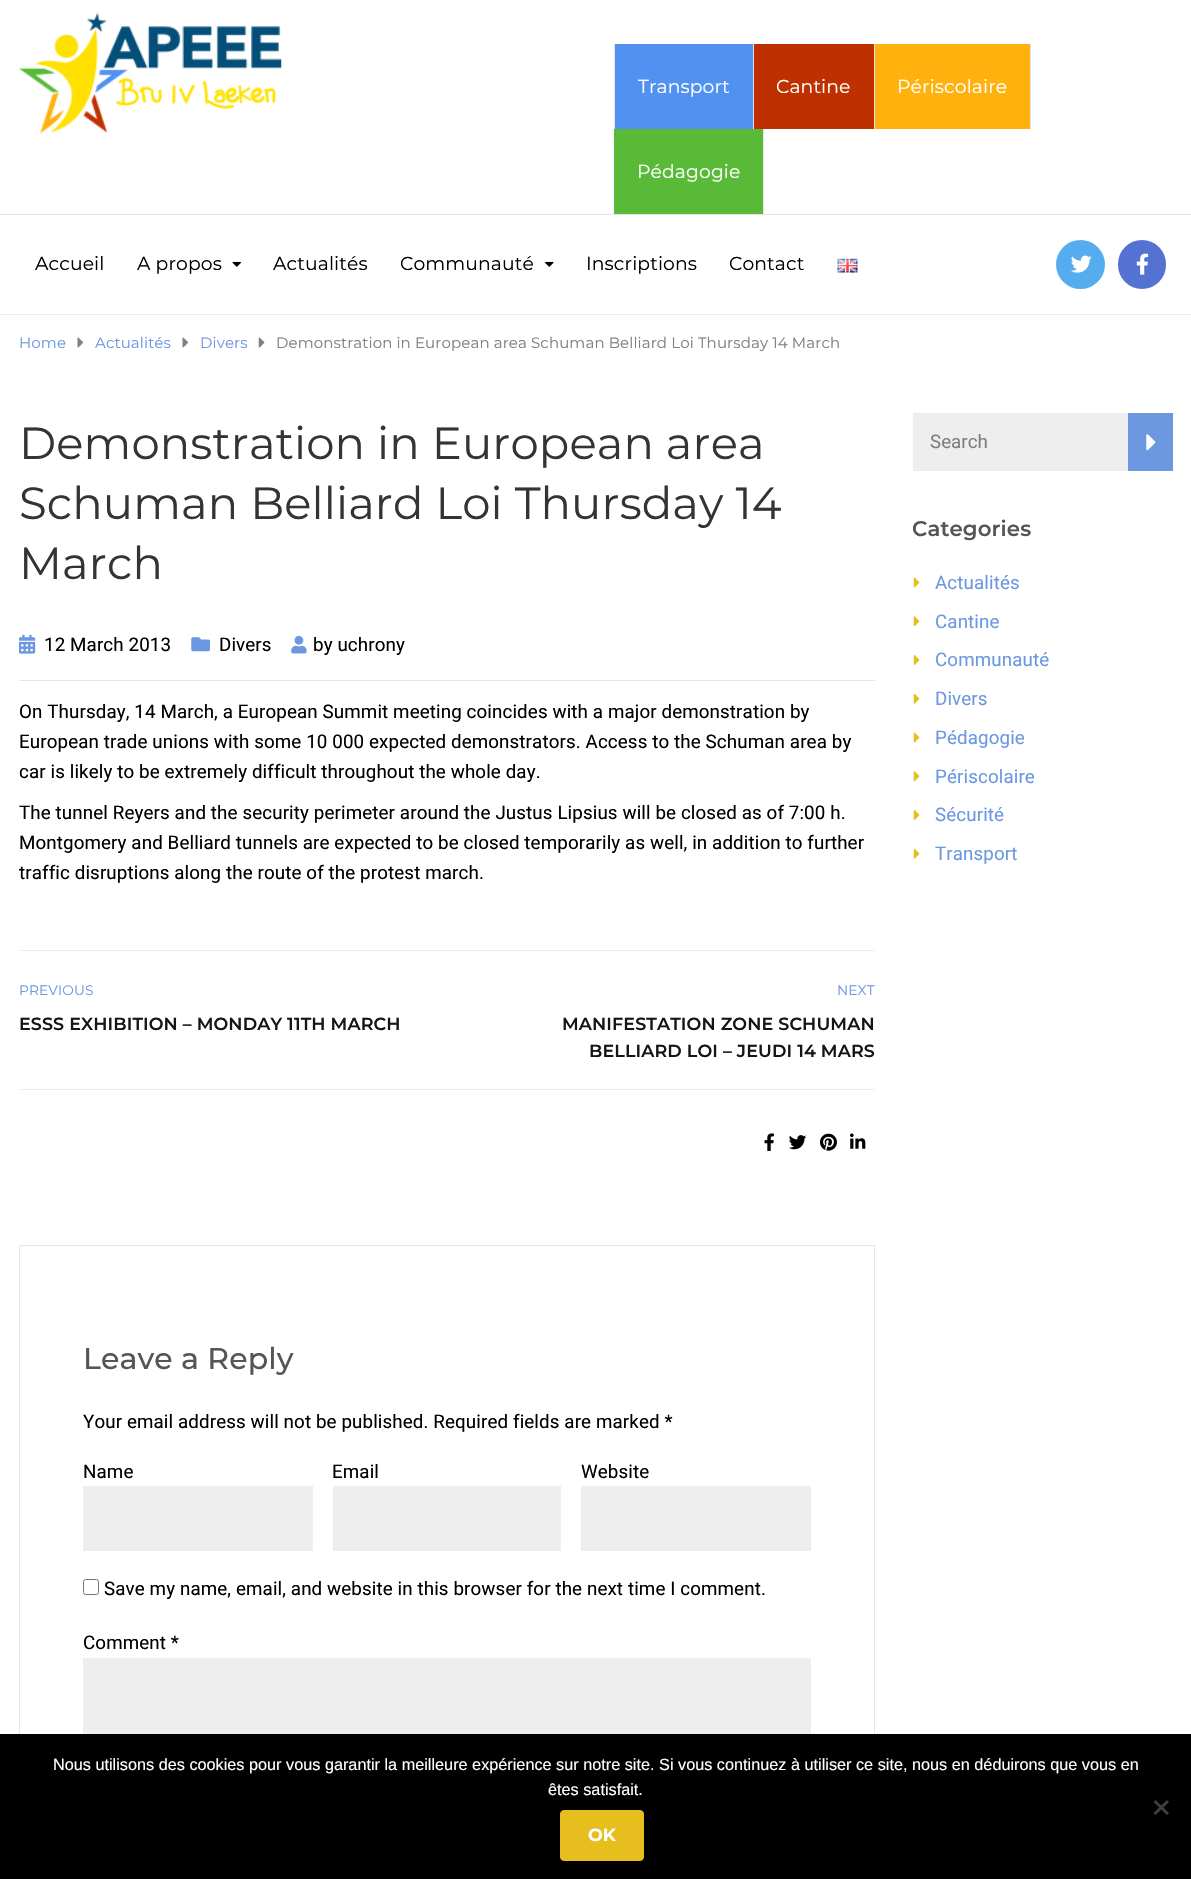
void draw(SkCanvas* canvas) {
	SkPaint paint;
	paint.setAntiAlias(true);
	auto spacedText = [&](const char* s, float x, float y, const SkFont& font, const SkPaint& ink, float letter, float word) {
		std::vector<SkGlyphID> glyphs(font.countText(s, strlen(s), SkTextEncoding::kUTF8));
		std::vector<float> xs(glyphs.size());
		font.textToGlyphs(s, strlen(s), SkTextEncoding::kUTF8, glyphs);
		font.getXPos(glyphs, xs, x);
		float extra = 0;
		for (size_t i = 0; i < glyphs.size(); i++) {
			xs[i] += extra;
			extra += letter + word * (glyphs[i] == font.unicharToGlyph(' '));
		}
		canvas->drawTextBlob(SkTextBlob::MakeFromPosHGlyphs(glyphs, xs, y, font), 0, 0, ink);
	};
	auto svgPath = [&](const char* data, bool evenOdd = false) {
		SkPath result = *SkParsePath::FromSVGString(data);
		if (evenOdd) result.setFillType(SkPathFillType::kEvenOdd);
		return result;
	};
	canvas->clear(0xffffffff);
	paint.setColor(0xffebebeb);
	canvas->drawRect(SkRect::MakeXYWH(0, 314, 1191, 1), paint);
	paint.setColor(0xffe5e5e5);
	canvas->drawRect(SkRect::MakeXYWH(0, 214, 1191, 1), paint);
	canvas->drawImageRect(SkImages::DeferredFromEncodedData(SkData::MakeFromFileName("img1.png")), SkRect::MakeXYWH(18, 12, 264, 122), SkSamplingOptions());
	paint.setColor(0xff5091f1);
	canvas->drawRect(SkRect::MakeXYWH(615, 44, 138, 85), paint);
	paint.setColor(0xffe5e5e5);
	canvas->drawRect(SkRect::MakeXYWH(753, 44, 1, 85), paint);
	canvas->drawRect(SkRect::MakeXYWH(614, 44, 1, 85), paint);
	SkFont f1(fontMgr->matchFamilyStyle("Montserrat", SkFontStyle::Normal()), 18.75);
	f1.setSubpixel(true);
	paint.setColor(0xffffffff);
	spacedText("Transport", 638, 93, f1, paint, 0.12, 0);
	paint.setColor(0xffbf3000);
	canvas->drawRect(SkRect::MakeXYWH(754, 44, 120, 85), paint);
	paint.setColor(0xffe5e5e5);
	canvas->drawRect(SkRect::MakeXYWH(874, 44, 1, 85), paint);
	paint.setColor(0xffffffff);
	spacedText("Cantine", 776, 93, f1, paint, 0.12, 0);
	paint.setColor(0xffffb20d);
	canvas->drawRect(SkRect::MakeXYWH(875, 44, 155, 85), paint);
	paint.setColor(0xffe5e5e5);
	canvas->drawRect(SkRect::MakeXYWH(1030, 44, 1, 85), paint);
	paint.setColor(0xffffffff);
	spacedText("Périscolaire", 897, 93, f1, paint, 0.12, 0);
	paint.setColor(0xff58ba37);
	canvas->drawRect(SkRect::MakeXYWH(614, 129, 149, 85), paint);
	paint.setColor(0xffe5e5e5);
	canvas->drawRect(SkRect::MakeXYWH(763, 129, 1, 85), paint);
	paint.setColor(0xffffffff);
	spacedText("Pédagogie", 637, 178, f1, paint, 0.12, 0);
	paint.setColor(0xff000000);
	spacedText("Accueil", 35, 270, f1, paint, 0.12, 0);
	spacedText("A propos", 137, 270, f1, paint, 0.12, 0);
	canvas->drawImageRect(SkImages::DeferredFromEncodedData(SkData::MakeFromFileName("img2.png")), SkRect::MakeXYWH(232, 261, 9, 6), SkSamplingOptions());
	spacedText("Actualités", 273, 270, f1, paint, 0.12, 0);
	spacedText("Communauté", 400, 270, f1, paint, 0.12, 0);
	canvas->drawImageRect(SkImages::DeferredFromEncodedData(SkData::MakeFromFileName("img3.png")), SkRect::MakeXYWH(545, 261, 9, 6), SkSamplingOptions());
	spacedText("Inscriptions", 586, 270, f1, paint, 0.12, 0);
	spacedText("Contact", 729, 270, f1, paint, 0.12, 0);
	canvas->drawImageRect(SkImages::DeferredFromEncodedData(SkData::MakeFromFileName("img4.png")), SkRect::MakeXYWH(837, 258, 21, 15), SkSamplingOptions());
	paint.setColor(0xff55acee);
	canvas->drawCircle(1080.5, 264.5, 24.5, paint);
	canvas->drawImageRect(SkImages::DeferredFromEncodedData(SkData::MakeFromFileName("img5.png")), SkRect::MakeXYWH(1071, 255, 21, 18), SkSamplingOptions());
	paint.setColor(0xff5472d2);
	canvas->drawRoundRect(SkRect::MakeXYWH(1118, 240, 48, 49), 24, 24, paint);
	canvas->drawImageRect(SkImages::DeferredFromEncodedData(SkData::MakeFromFileName("img6.png")), SkRect::MakeXYWH(1136, 253, 13, 22), SkSamplingOptions());
	SkFont f2(fontMgr->matchFamilyStyle("Montserrat", SkFontStyle::Normal()), 15);
	f2.setSubpixel(true);
	paint.setColor(0xff6c98e1);
	spacedText("Home", 19, 348, f2, paint, 0.12, 0);
	canvas->drawImageRect(SkImages::DeferredFromEncodedData(SkData::MakeFromFileName("img7.png")), SkRect::MakeXYWH(77, 337, 7, 11), SkSamplingOptions());
	spacedText("Actualités", 95, 348, f2, paint, 0.12, 0);
	canvas->drawImageRect(SkImages::DeferredFromEncodedData(SkData::MakeFromFileName("img7.png")), SkRect::MakeXYWH(182, 337, 7, 11), SkSamplingOptions());
	spacedText("Divers", 200, 348, f2, paint, 0.12, 0);
	canvas->drawImageRect(SkImages::DeferredFromEncodedData(SkData::MakeFromFileName("img8.png")), SkRect::MakeXYWH(258, 337, 7, 11), SkSamplingOptions());
	paint.setColor(0xff7b8085);
	spacedText("Demonstration in European area Schuman Belliard Loi Thursday 14 March", 276, 348, f2, paint, 0.12, 0);
	SkFont f3(fontMgr->matchFamilyStyle("Montserrat", SkFontStyle::Normal()), 45);
	f3.setSubpixel(true);
	paint.setColor(0xff333436);
	spacedText("Demonstration in European area", 19, 459, f3, paint, 0.12, 0);
	spacedText("Schuman Belliard Loi Thursday 14", 19, 519, f3, paint, 0.12, 0);
	spacedText("March", 19, 579, f3, paint, 0.12, 0);
	paint.setColor(0xffe6e6e6);
	canvas->drawRect(SkRect::MakeXYWH(19, 680, 856, 1), paint);
	canvas->drawImageRect(SkImages::DeferredFromEncodedData(SkData::MakeFromFileName("img9.png")), SkRect::MakeXYWH(19, 634, 17, 20), SkSamplingOptions());
	SkFont f4(fontMgr->matchFamilyStyle("Roboto", SkFontStyle::Normal()), 18.75);
	f4.setSubpixel(true);
	paint.setColor(0xff000000);
	spacedText("12 March 2013", 44, 651, f4, paint, 0.12, 0);
	canvas->drawImageRect(SkImages::DeferredFromEncodedData(SkData::MakeFromFileName("img10.png")), SkRect::MakeXYWH(191, 637, 19, 15), SkSamplingOptions());
	spacedText("Divers", 219, 651, f4, paint, 0.12, 0);
	canvas->drawImageRect(SkImages::DeferredFromEncodedData(SkData::MakeFromFileName("img11.png")), SkRect::MakeXYWH(291, 635, 16, 19), SkSamplingOptions());
	spacedText("by uchrony", 313, 651, f4, paint, 0.12, 0);
	spacedText("On Thursday, 14 March, a European Summit meeting coincides with a major demonstration by", 19, 718, f4, paint, 0.12, 0);
	spacedText("European trade unions with some 10 000 expected demonstrators. Access to the Schuman area by", 19, 748, f4, paint, 0.12, 0);
	spacedText("car is likely to be extremely difficult throughout the whole day.", 19, 778, f4, paint, 0.12, 0);
	spacedText("The tunnel Reyers and the security perimeter around the Justus Lipsius will be closed as of 7:00 h.", 19, 819, f4, paint, 0.12, 0);
	spacedText("Montgomery and Belliard tunnels are expected to be closed temporarily as well, in addition to further", 19, 849, f4, paint, 0.12, 0);
	spacedText("traffic disruptions along the route of the protest march.", 19, 879, f4, paint, 0.12, 0);
	paint.setColor(0xffeeeeee);
	canvas->drawRect(SkRect::MakeXYWH(19, 950, 856, 1), paint);
	canvas->drawRect(SkRect::MakeXYWH(19, 1089, 856, 1), paint);
	SkFont f5(fontMgr->matchFamilyStyle("Montserrat", SkFontStyle::Normal()), 13.75);
	f5.setSubpixel(true);
	paint.setColor(0xff6c98e1);
	spacedText("PREVIOUS", 19, 995, f5, paint, 0.12, 0);
	SkFont f6(fontMgr->matchFamilyStyle("Montserrat", SkFontStyle(600, SkFontStyle::kNormal_Width, SkFontStyle::kUpright_Slant)), 17.5);
	f6.setSubpixel(true);
	paint.setColor(0xff151515);
	spacedText("ESSS EXHIBITION – MONDAY 11TH MARCH", 19, 1030, f6, paint, 0.12, 0);
	paint.setColor(0xff6c98e1);
	spacedText("NEXT", 837, 995, f5, paint, 0.12, 0);
	paint.setColor(0xff151515);
	spacedText("MANIFESTATION ZONE SCHUMAN", 562, 1030, f6, paint, 0.12, 0);
	spacedText("BELLIARD LOI – JEUDI 14 MARS", 589, 1057, f6, paint, 0.12, 0);
	canvas->drawImageRect(SkImages::DeferredFromEncodedData(SkData::MakeFromFileName("img12.png")), SkRect::MakeXYWH(764, 1133, 10, 18), SkSamplingOptions());
	canvas->drawImageRect(SkImages::DeferredFromEncodedData(SkData::MakeFromFileName("img13.png")), SkRect::MakeXYWH(789, 1135, 18, 15), SkSamplingOptions());
	canvas->drawImageRect(SkImages::DeferredFromEncodedData(SkData::MakeFromFileName("img14.png")), SkRect::MakeXYWH(820, 1133, 17, 18), SkSamplingOptions());
	canvas->drawImageRect(SkImages::DeferredFromEncodedData(SkData::MakeFromFileName("img15.png")), SkRect::MakeXYWH(850, 1133, 16, 16), SkSamplingOptions());
	paint.setStroke(true);
	paint.setStrokeWidth(1);
	paint.setColor(0xffe6e6e6);
	canvas->drawRect(SkRect::MakeXYWH(19.5, 1245.5, 855, 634), paint);
	SkFont f7(fontMgr->matchFamilyStyle("Montserrat", SkFontStyle(500, SkFontStyle::kNormal_Width, SkFontStyle::kUpright_Slant)), 30);
	f7.setSubpixel(true);
	paint.setStroke(false);
	paint.setColor(0xff555555);
	spacedText("Leave a Reply", 83, 1369, f7, paint, 0.12, 0);
	paint.setColor(0xff000000);
	spacedText("Your email address will not be published. Required fields are marked *", 83, 1428, f4, paint, 0.12, 0);
	spacedText("Name", 83, 1478, f4, paint, 0.12, 0);
	paint.setColor(0xffeeeeee);
	canvas->drawRect(SkRect::MakeXYWH(83, 1486, 230, 65), paint);
	paint.setColor(0xff000000);
	spacedText("Email", 332, 1478, f4, paint, 0.12, 0);
	paint.setColor(0xffeeeeee);
	canvas->drawRect(SkRect::MakeXYWH(333, 1486, 228, 65), paint);
	paint.setColor(0xff000000);
	spacedText("Website", 581, 1478, f4, paint, 0.12, 0);
	paint.setColor(0xffeeeeee);
	canvas->drawRect(SkRect::MakeXYWH(581, 1486, 230, 65), paint);
	paint.setStroke(true);
	paint.setColor(0xff767676);
	canvas->drawRoundRect(SkRect::MakeXYWH(83.5, 1579.5, 15, 15), 2, 2, paint);
	paint.setStroke(false);
	paint.setColor(0xff000000);
	spacedText("Save my name, email, and website in this browser for the next time I comment.", 104, 1595, f4, paint, 0.12, 0);
	spacedText("Comment *", 83, 1649, f4, paint, 0.12, 0);
	paint.setColor(0xffeeeeee);
	canvas->drawRect(SkRect::MakeXYWH(83, 1658, 728, 76), paint);
	canvas->drawRect(SkRect::MakeXYWH(913, 413, 215, 58), paint);
	paint.setColor(0xff7b8085);
	canvas->drawString("Search", 930, 448, f4, paint);
	paint.setColor(0xff6c98e1);
	canvas->drawRect(SkRect::MakeXYWH(1128, 413, 45, 58), paint);
	canvas->drawImageRect(SkImages::DeferredFromEncodedData(SkData::MakeFromFileName("img16.png")), SkRect::MakeXYWH(1146, 434, 10, 17), SkSamplingOptions());
	SkFont f8(fontMgr->matchFamilyStyle("Montserrat", SkFontStyle(600, SkFontStyle::kNormal_Width, SkFontStyle::kUpright_Slant)), 21.25);
	f8.setSubpixel(true);
	paint.setColor(0xff555555);
	spacedText("Categories", 912, 536, f8, paint, 0.12, 0);
	canvas->drawImageRect(SkImages::DeferredFromEncodedData(SkData::MakeFromFileName("img17.png")), SkRect::MakeXYWH(913, 577, 7, 11), SkSamplingOptions());
	paint.setColor(0xff6c98e1);
	spacedText("Actualités", 935, 589, f4, paint, 0.12, 0);
	canvas->drawImageRect(SkImages::DeferredFromEncodedData(SkData::MakeFromFileName("img18.png")), SkRect::MakeXYWH(913, 616, 7, 11), SkSamplingOptions());
	spacedText("Cantine", 935, 628, f4, paint, 0.12, 0);
	canvas->drawImageRect(SkImages::DeferredFromEncodedData(SkData::MakeFromFileName("img19.png")), SkRect::MakeXYWH(913, 655, 7, 10), SkSamplingOptions());
	spacedText("Communauté", 935, 666, f4, paint, 0.12, 0);
	canvas->drawImageRect(SkImages::DeferredFromEncodedData(SkData::MakeFromFileName("img20.png")), SkRect::MakeXYWH(913, 693, 7, 11), SkSamplingOptions());
	spacedText("Divers", 935, 705, f4, paint, 0.12, 0);
	canvas->drawImageRect(SkImages::DeferredFromEncodedData(SkData::MakeFromFileName("img17.png")), SkRect::MakeXYWH(913, 732, 7, 11), SkSamplingOptions());
	spacedText("Pédagogie", 935, 744, f4, paint, 0.12, 0);
	canvas->drawImageRect(SkImages::DeferredFromEncodedData(SkData::MakeFromFileName("img18.png")), SkRect::MakeXYWH(913, 771, 7, 11), SkSamplingOptions());
	spacedText("Périscolaire", 935, 783, f4, paint, 0.12, 0);
	canvas->drawImageRect(SkImages::DeferredFromEncodedData(SkData::MakeFromFileName("img19.png")), SkRect::MakeXYWH(913, 810, 7, 10), SkSamplingOptions());
	spacedText("Sécurité", 935, 821, f4, paint, 0.12, 0);
	canvas->drawImageRect(SkImages::DeferredFromEncodedData(SkData::MakeFromFileName("img20.png")), SkRect::MakeXYWH(913, 848, 7, 11), SkSamplingOptions());
	spacedText("Transport", 935, 860, f4, paint, 0.12, 0);
	paint.setColor(0xff000000);
	canvas->drawRect(SkRect::MakeXYWH(0, 1734, 1191, 145), paint);
	SkFont f9(fontMgr->matchFamilyStyle("Liberation Sans", SkFontStyle::Normal()), 16.25);
	f9.setSubpixel(true);
	paint.setColor(0xffffffff);
	canvas->drawString("Nous utilisons des cookies pour vous garantir la meilleure expérience sur notre site. Si vous continuez à utiliser ce site, nous en déduirons que vous en", 53, 1770, f9, paint);
	canvas->drawString("êtes satisfait.", 548, 1795, f9, paint);
	paint.setColor(0xff404040);
	canvas->drawPath(svgPath("M1167 1800L1169 1802L1155.5 1815L1153.5 1813Z"), paint);
	canvas->drawPath(svgPath("M1153.5 1802L1155.5 1800L1169 1813L1167 1815Z"), paint);
	paint.setColor(0xffe6be1e);
	canvas->drawRoundRect(SkRect::MakeXYWH(560.5, 1810.5, 83, 50), 3.5, 3.5, paint);
	paint.setStroke(true);
	canvas->drawRoundRect(SkRect::MakeXYWH(560.5, 1810.5, 83, 50), 3.5, 3.5, paint);
	SkFont f10(fontMgr->matchFamilyStyle("Montserrat", SkFontStyle::Bold()), 17.5);
	f10.setSubpixel(true);
	paint.setStroke(false);
	paint.setColor(0xffffffff);
	canvas->drawString("OK", 588, 1841, f10, paint);
}
